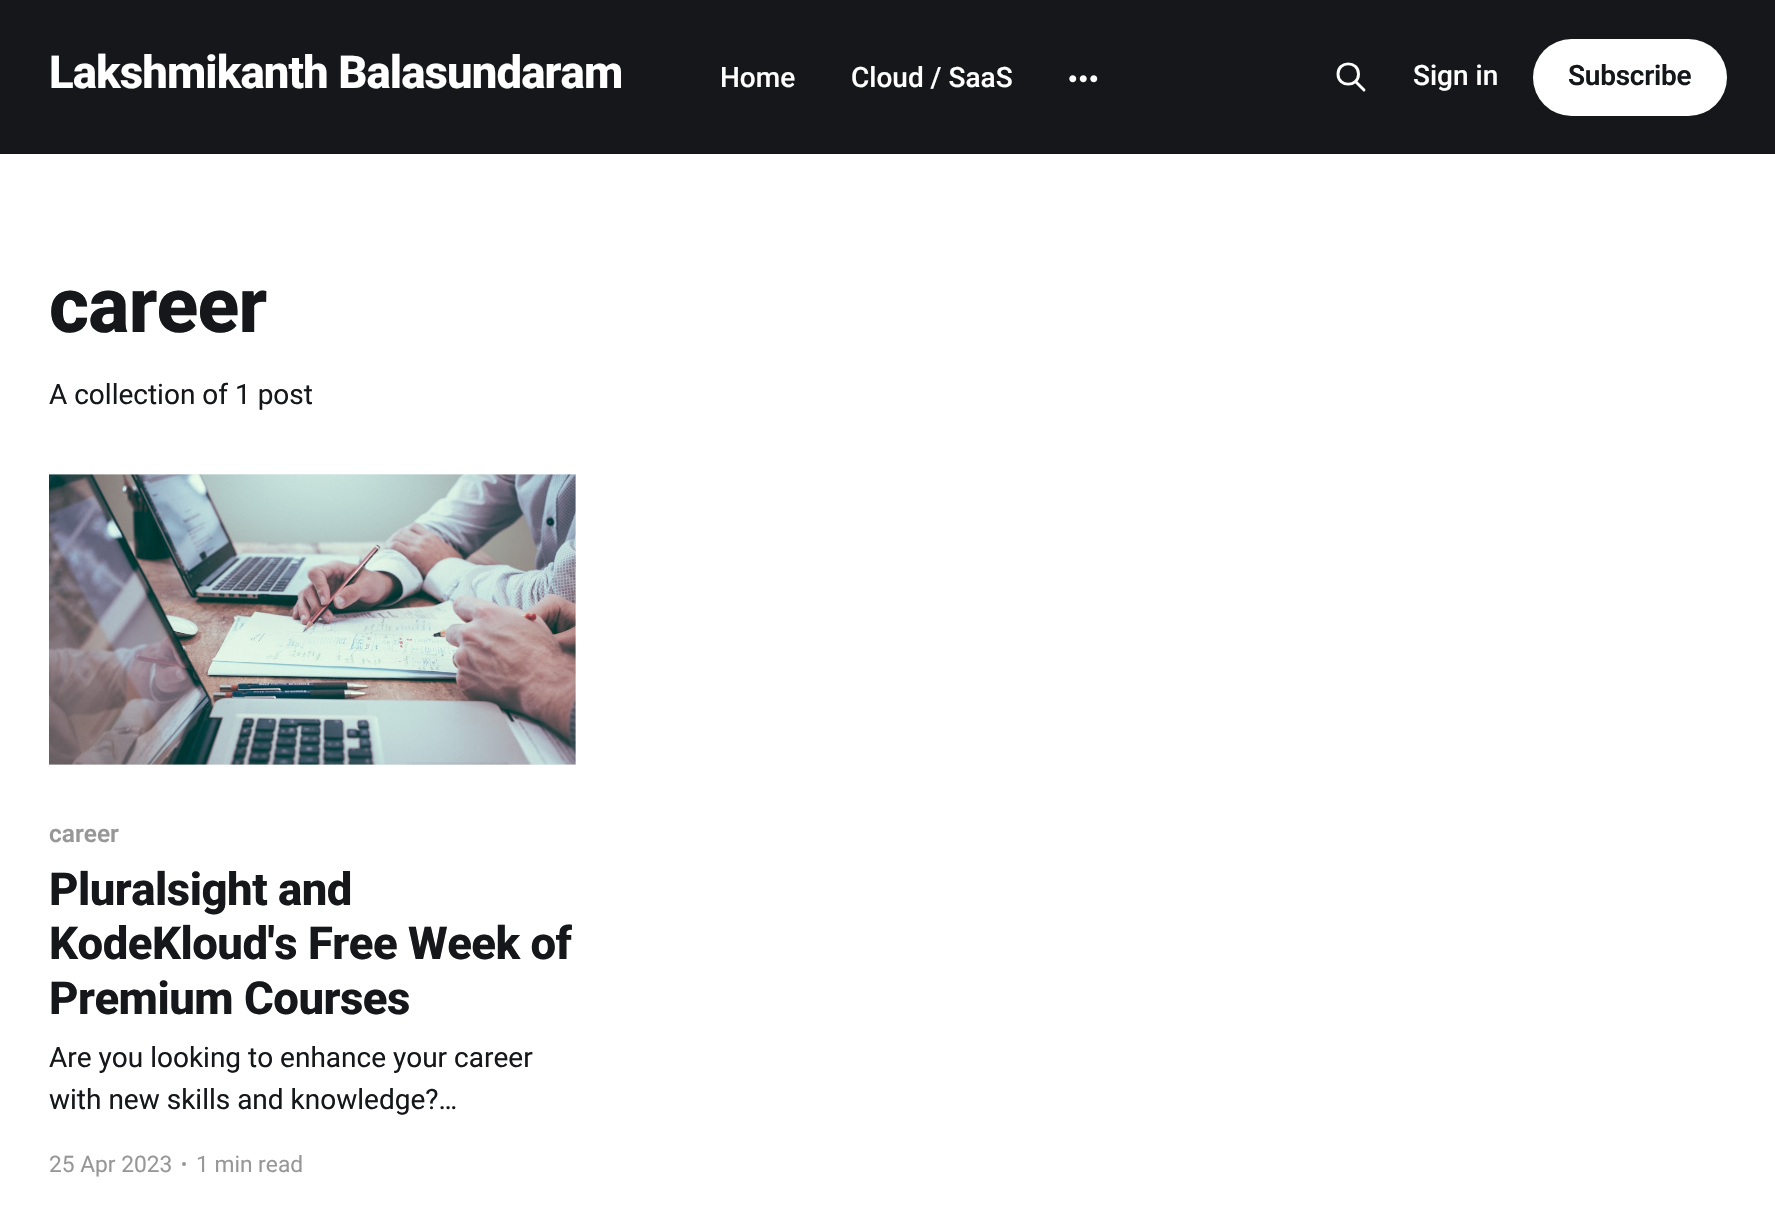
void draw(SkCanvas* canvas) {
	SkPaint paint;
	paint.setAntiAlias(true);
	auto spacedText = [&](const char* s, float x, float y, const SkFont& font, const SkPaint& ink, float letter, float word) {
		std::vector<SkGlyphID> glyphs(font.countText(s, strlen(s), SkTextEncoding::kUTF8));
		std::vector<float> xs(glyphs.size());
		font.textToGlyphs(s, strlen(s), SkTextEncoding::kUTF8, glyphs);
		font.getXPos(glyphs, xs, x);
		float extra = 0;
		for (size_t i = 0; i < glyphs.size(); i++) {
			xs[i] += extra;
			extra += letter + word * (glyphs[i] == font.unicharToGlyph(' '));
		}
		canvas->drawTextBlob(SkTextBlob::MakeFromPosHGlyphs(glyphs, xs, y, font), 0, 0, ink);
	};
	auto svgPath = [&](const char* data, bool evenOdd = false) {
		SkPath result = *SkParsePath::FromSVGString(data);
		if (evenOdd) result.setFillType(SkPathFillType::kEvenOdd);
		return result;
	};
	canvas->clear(0xffffffff);
	paint.setColor(0xff15171a);
	canvas->drawRect(SkRect::MakeXYWH(0, 0, 1775, 154), paint);
	SkFont f1(fontMgr->matchFamilyStyle("Roboto", SkFontStyle(800, SkFontStyle::kNormal_Width, SkFontStyle::kUpright_Slant)), 45.5);
	f1.setSubpixel(true);
	paint.setColor(0xffffffff);
	spacedText("Lakshmikanth Balasundaram", 49, 88, f1, paint, -0.9, 0);
	SkFont f2(fontMgr->matchFamilyStyle("Roboto", SkFontStyle(500, SkFontStyle::kNormal_Width, SkFontStyle::kUpright_Slant)), 28);
	f2.setSubpixel(true);
	canvas->drawString("Home", 720, 87, f2, paint);
	canvas->drawString("Cloud / SaaS", 851, 87, f2, paint);
	canvas->drawImageRect(SkImages::DeferredFromEncodedData(SkData::MakeFromFileName("img1.png")), SkRect::MakeXYWH(1069, 75, 29, 8), SkSamplingOptions());
	paint.setStroke(true);
	paint.setStrokeWidth(2.9);
	paint.setStrokeCap(SkPaint::kRound_Cap);
	paint.setStrokeJoin(SkPaint::kRound_Join);
	canvas->drawPath(svgPath("M1364 90L1355.5 81.5M1358.5 74C1358.5 87.5 1338 87.5 1338 74C1338 60.5 1358.5 60.5 1358.5 74Z"), paint);
	paint.setStroke(false);
	canvas->drawString("Sign in", 1413, 85, f2, paint);
	canvas->drawRoundRect(SkRect::MakeXYWH(1533, 39, 194, 77), 38.5, 38.5, paint);
	SkFont f3(fontMgr->matchFamilyStyle("Roboto", SkFontStyle(600, SkFontStyle::kNormal_Width, SkFontStyle::kUpright_Slant)), 28);
	f3.setSubpixel(true);
	paint.setColor(0xff15171a);
	spacedText("Subscribe", 1568, 85, f3, paint, -0.25, 0);
	SkFont f4(fontMgr->matchFamilyStyle("Roboto", SkFontStyle(800, SkFontStyle::kNormal_Width, SkFontStyle::kUpright_Slant)), 77);
	f4.setSubpixel(true);
	spacedText("career", 49, 332, f4, paint, -0.75, 0);
	SkFont f5(fontMgr->matchFamilyStyle("Roboto", SkFontStyle::Normal()), 28);
	f5.setSubpixel(true);
	canvas->drawString("A collection of 1 post", 49, 404, f5, paint);
	paint.setColor(0xfff1f1f1);
	canvas->drawRect(SkRect::MakeXYWH(49, 474, 527, 291), paint);
	canvas->drawImageRect(SkImages::DeferredFromEncodedData(SkData::MakeFromFileName("img2.png")), SkRect::MakeXYWH(49, 474, 527, 291), SkSamplingOptions());
	SkFont f6(fontMgr->matchFamilyStyle("Roboto", SkFontStyle(600, SkFontStyle::kNormal_Width, SkFontStyle::kUpright_Slant)), 24.5);
	f6.setSubpixel(true);
	paint.setColor(0xff979797);
	canvas->drawString("career", 49, 842, f6, paint);
	paint.setColor(0xff15171a);
	spacedText("Pluralsight and", 49, 905, f1, paint, -0.5, 0);
	spacedText("KodeKloud's Free Week of", 49, 959, f1, paint, -0.5, 0);
	spacedText("Premium Courses", 49, 1014, f1, paint, -0.5, 0);
	canvas->drawString("Are you looking to enhance your career", 49, 1067, f5, paint);
	canvas->drawString("with new skills and knowledge?…", 49, 1109, f5, paint);
	SkFont f7(fontMgr->matchFamilyStyle("Roboto", SkFontStyle::Normal()), 22.75);
	f7.setSubpixel(true);
	paint.setColor(0xff979797);
	canvas->drawString("25 Apr 2023", 49, 1172, f7, paint);
	canvas->drawCircle(184, 1164, 2, paint);
	canvas->drawString("1 min read", 196, 1172, f7, paint);
}
